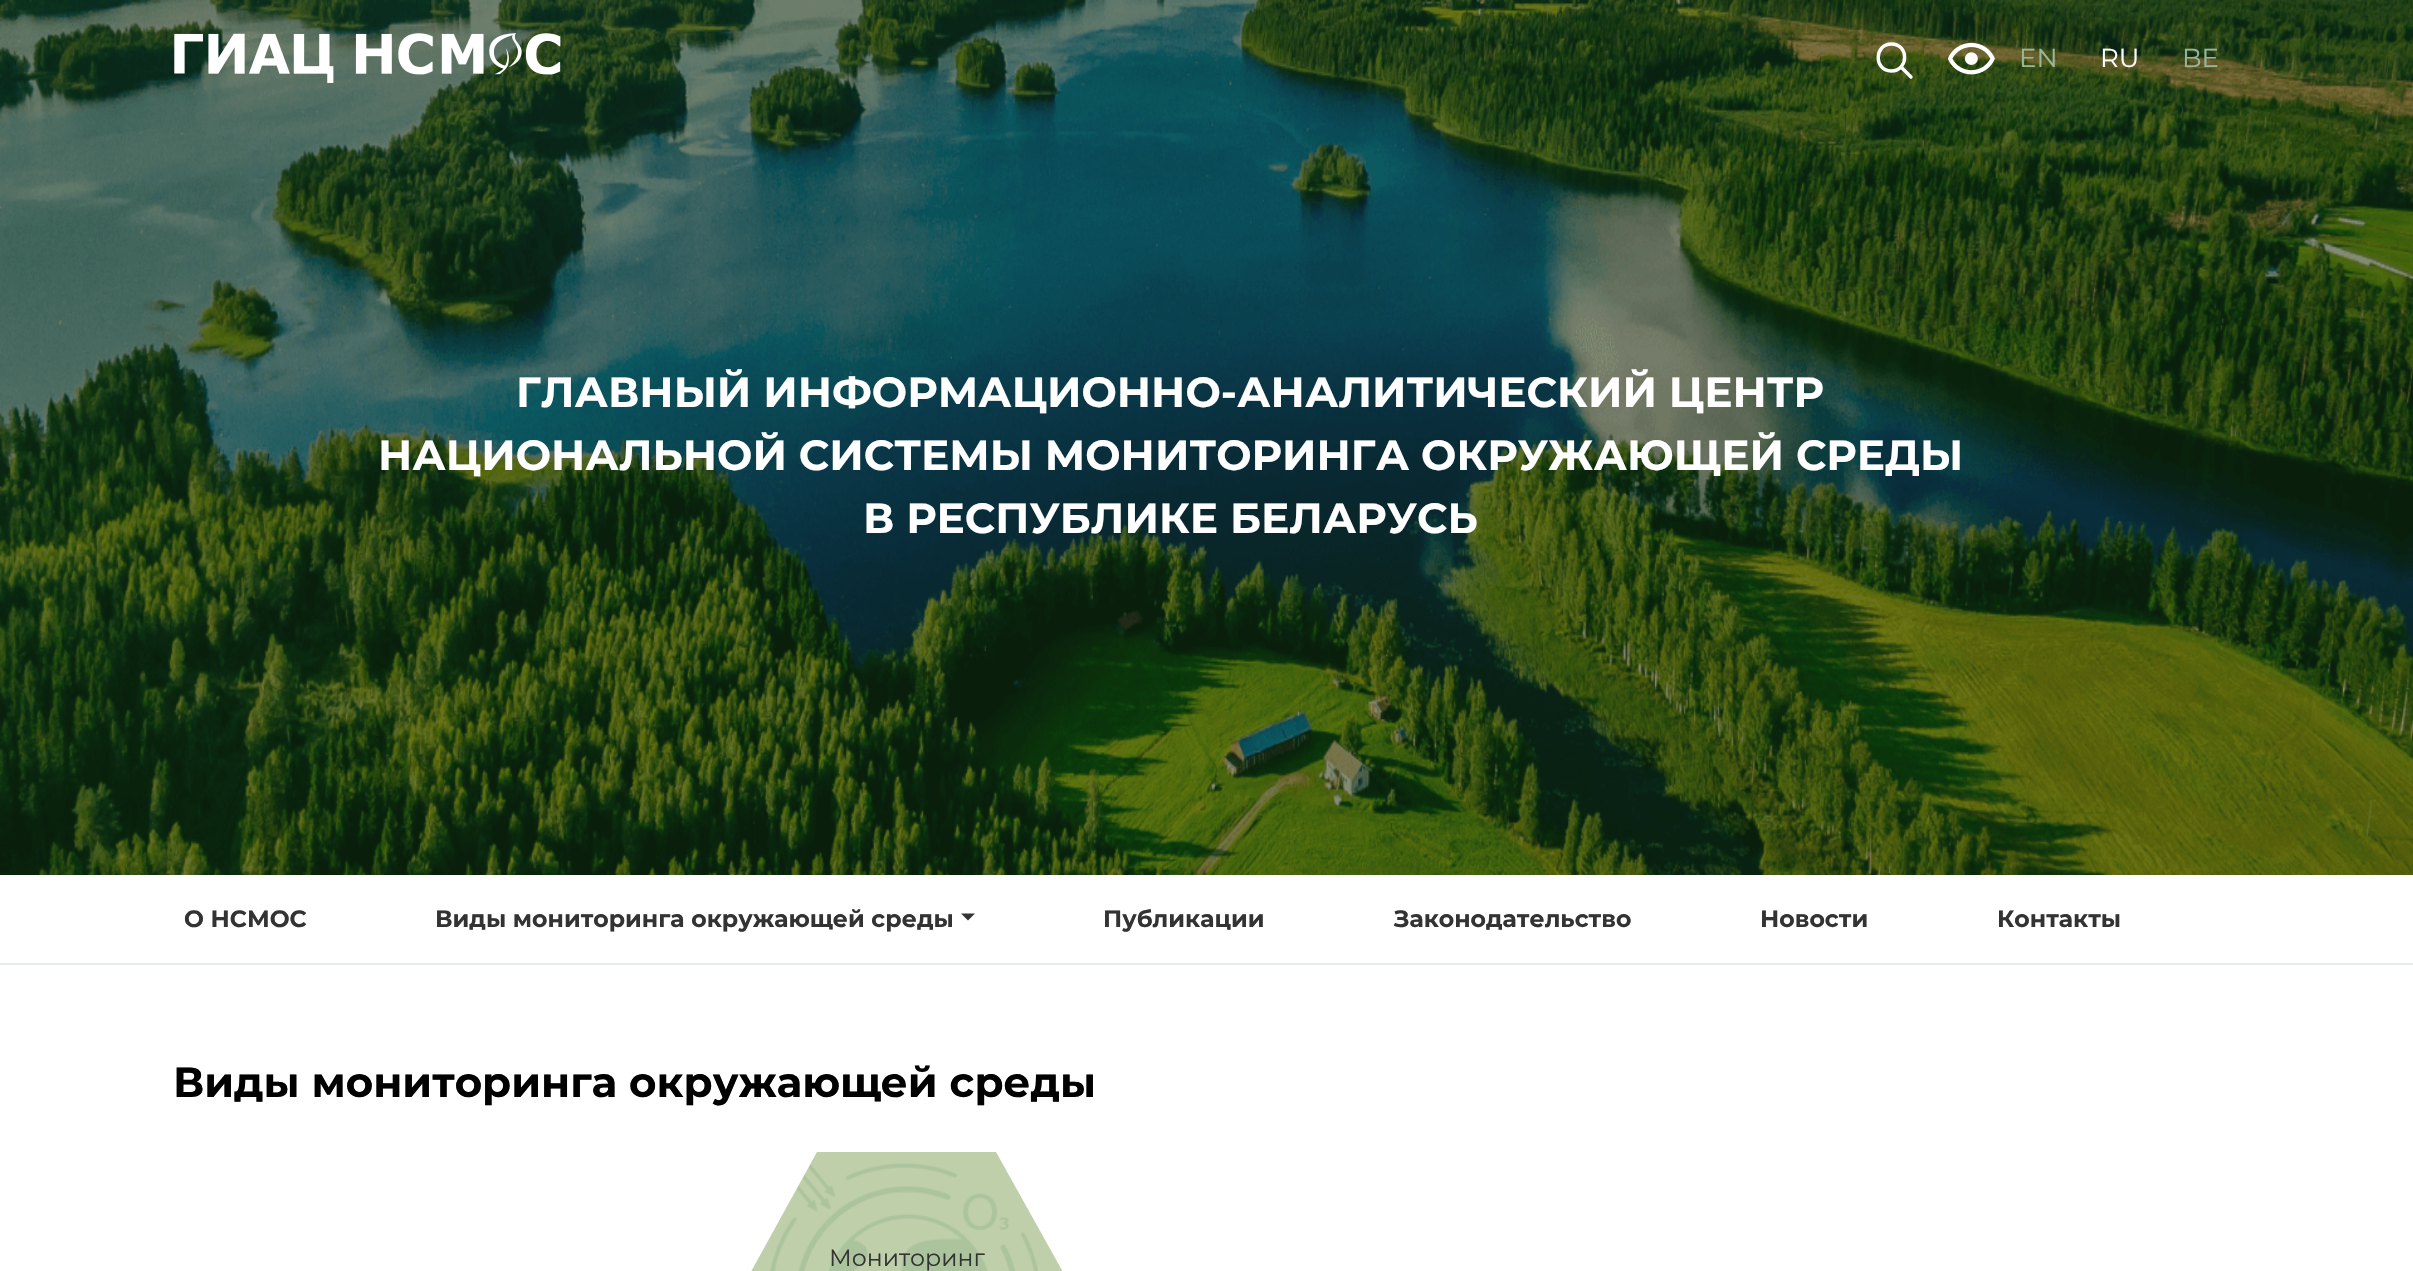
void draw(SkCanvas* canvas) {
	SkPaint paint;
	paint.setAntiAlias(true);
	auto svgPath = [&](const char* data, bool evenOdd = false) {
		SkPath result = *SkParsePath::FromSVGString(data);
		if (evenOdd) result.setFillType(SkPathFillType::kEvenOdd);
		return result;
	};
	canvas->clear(0xffffffff);
	canvas->drawImageRect(SkImages::DeferredFromEncodedData(SkData::MakeFromFileName("img3.png")), SkRect::MakeXYWH(0, 0, 2413, 875), SkSamplingOptions());
	canvas->drawImageRect(SkImages::DeferredFromEncodedData(SkData::MakeFromFileName("img1.png")), SkRect::MakeXYWH(174, 33, 387, 50), SkSamplingOptions());
	paint.setStroke(true);
	paint.setStrokeWidth(3.4);
	paint.setColor(0xffffffff);
	canvas->drawPath(svgPath("M1891.5 44C1873.5 44 1874 71.5 1891.5 71C1909 70.5 1909 44 1891.5 44Z"), paint);
	paint.setStrokeCap(SkPaint::kRound_Cap);
	canvas->drawPath(svgPath("M1901.5 67.5L1911 77"), paint);
	canvas->drawImageRect(SkImages::DeferredFromEncodedData(SkData::MakeFromFileName("img2.png")), SkRect::MakeXYWH(1948, 42, 47, 33), SkSamplingOptions());
	SkFont f1(fontMgr->matchFamilyStyle("Montserrat", SkFontStyle::Normal()), 26);
	f1.setSubpixel(true);
	paint.setStroke(false);
	paint.setColor(0xff99b79a);
	canvas->drawString("EN", 2019, 67, f1, paint);
	paint.setColor(0xffffffff);
	canvas->drawString("RU", 2100, 67, f1, paint);
	paint.setColor(0xff99b79a);
	canvas->drawString("BE", 2182, 67, f1, paint);
	SkFont f2(fontMgr->matchFamilyStyle("Montserrat", SkFontStyle::Bold()), 42);
	f2.setSubpixel(true);
	paint.setColor(0xffffffff);
	canvas->drawString("ГЛАВНЫЙ ИНФОРМАЦИОННО-АНАЛИТИЧЕСКИЙ ЦЕНТР", 516, 407, f2, paint);
	canvas->drawString("НАЦИОНАЛЬНОЙ СИСТЕМЫ МОНИТОРИНГА ОКРУЖАЮЩЕЙ СРЕДЫ", 378, 470, f2, paint);
	canvas->drawString("В РЕСПУБЛИКЕ БЕЛАРУСЬ", 863, 533, f2, paint);
	paint.setColor(0xffe6ede6);
	canvas->drawRect(SkRect::MakeXYWH(0, 963, 2413, 2), paint);
	SkFont f3(fontMgr->matchFamilyStyle("Montserrat", SkFontStyle::Bold()), 23.6);
	f3.setSubpixel(true);
	paint.setColor(0xff333333);
	canvas->drawString("О НСМОС", 184, 927, f3, paint);
	canvas->drawString("Виды мониторинга окружающей среды", 435, 927, f3, paint);
	canvas->drawPath(svgPath("M961 913.5H975L968 920.5Z"), paint);
	canvas->drawString("Публикации", 1103, 927, f3, paint);
	canvas->drawString("Законодательство", 1394, 927, f3, paint);
	canvas->drawString("Новости", 1760, 927, f3, paint);
	canvas->drawString("Контакты", 1997, 927, f3, paint);
	paint.setColor(0xff000000);
	canvas->drawString("Виды мониторинга окружающей среды", 173, 1097, f2, paint);
	paint.setColor(0xffbfcfaa);
	canvas->drawPath(svgPath("M737 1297L817 1152H996L1078 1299L996 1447H818L737 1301Z"), paint);
	canvas->drawImageRect(SkImages::DeferredFromEncodedData(SkData::MakeFromFileName("img4.png")), SkRect::MakeXYWH(770, 1163, 268, 108), SkSamplingOptions());
	SkFont f4(fontMgr->matchFamilyStyle("Montserrat", SkFontStyle::Normal()), 23.6);
	f4.setSubpixel(true);
	paint.setColor(0xff333333);
	canvas->drawString("Мониторинг", 829, 1266, f4, paint);
}
